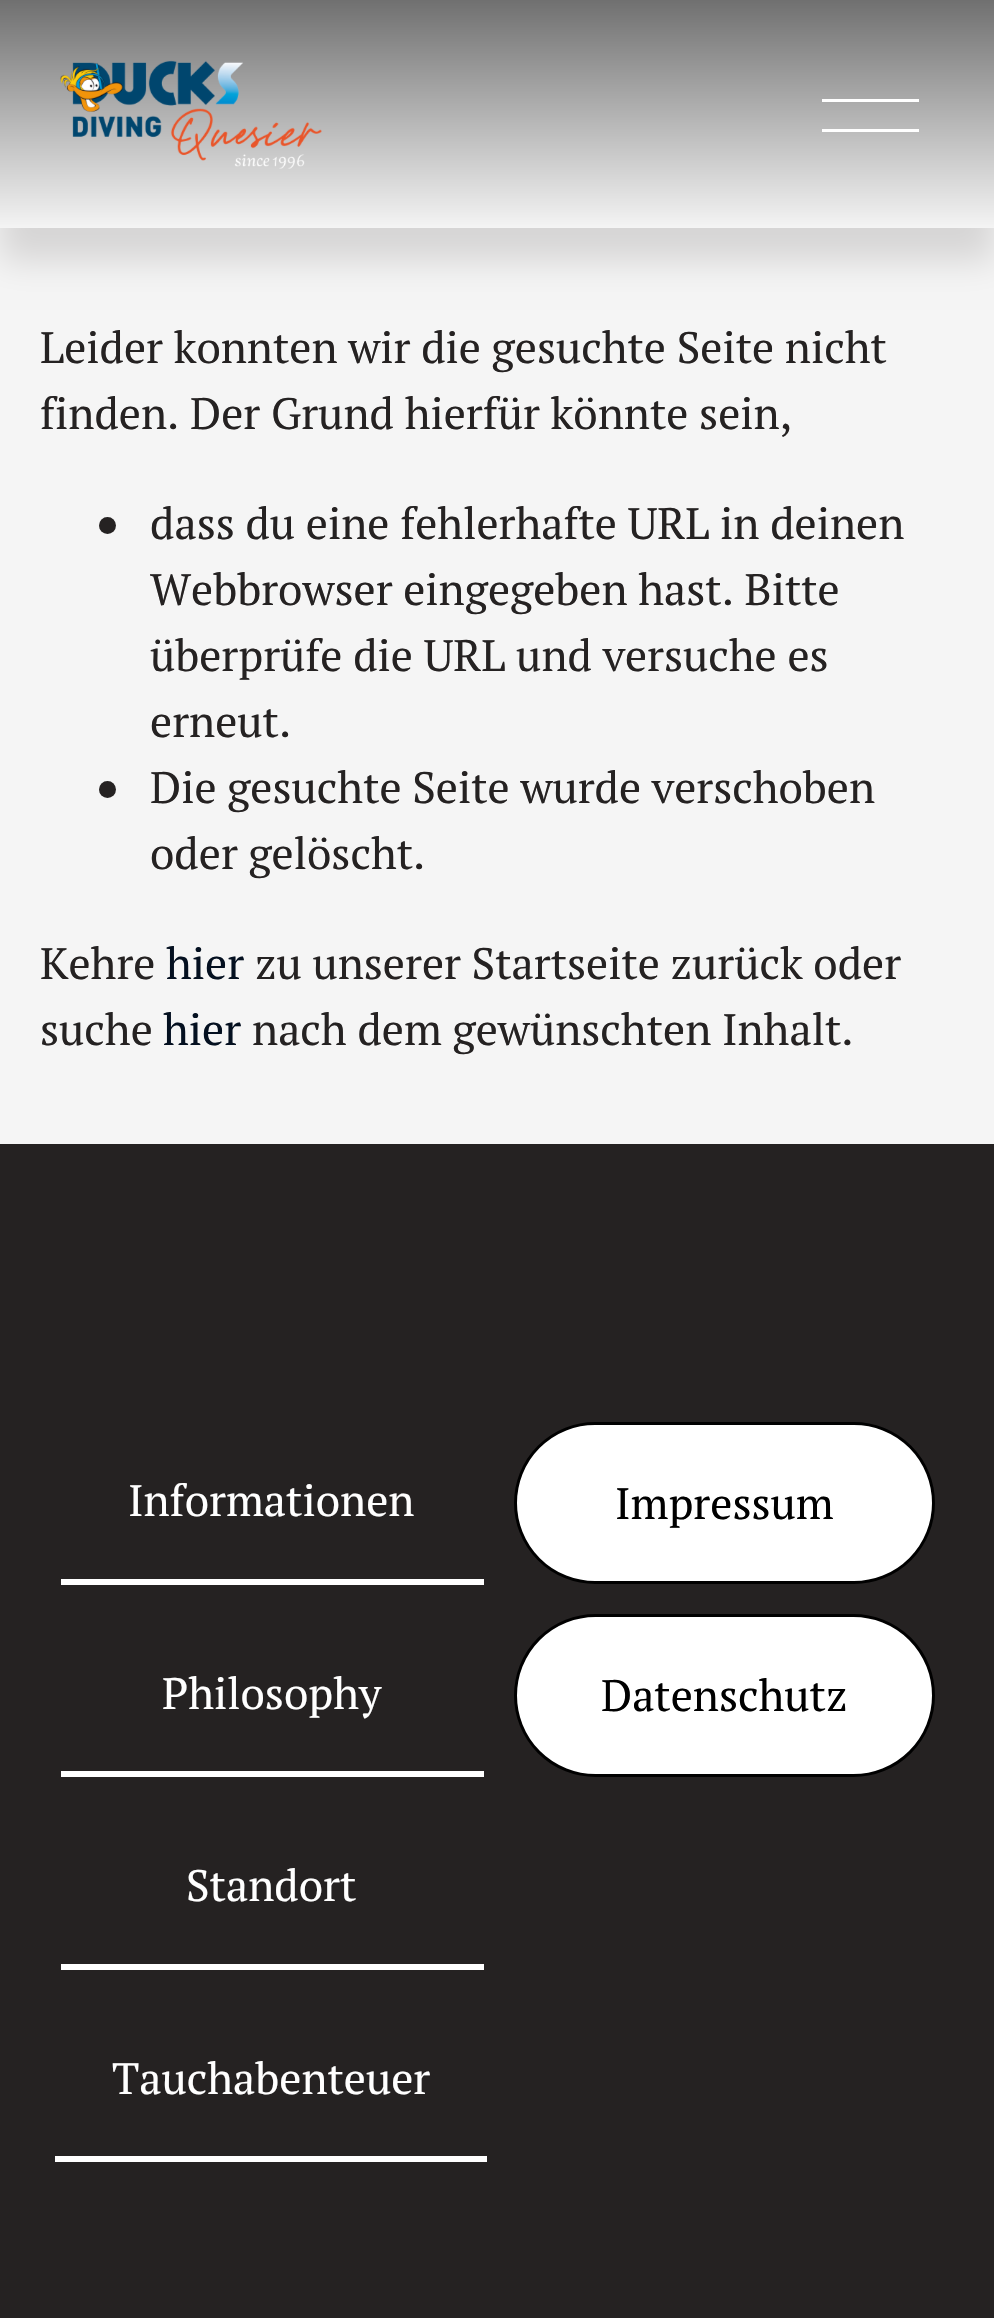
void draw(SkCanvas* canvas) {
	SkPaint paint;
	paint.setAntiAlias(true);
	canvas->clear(0xfff5f5f5);
	paint.setColor(0xffd6d5d5);
	paint.setMaskFilter(SkMaskFilter::MakeBlur(kNormal_SkBlurStyle, 16.5));
	canvas->drawRect(SkRect::MakeXYWH(0, 33, 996, 228), paint);
	paint.setMaskFilter(nullptr);
	{
		const SkColor colors[] = {0xff707070, 0xfff4f4f4};
		const float stops[] = {0, 1};
		const SkPoint ends[] = {{498, 0}, {498, 228}};
		paint.setShader(SkGradientShader::MakeLinear(ends, colors, stops, 2, SkTileMode::kClamp));
		paint.setAlpha(255);
	}
	canvas->drawRect(SkRect::MakeXYWH(0, 0, 994, 228), paint);
	canvas->drawImageRect(SkImages::DeferredFromEncodedData(SkData::MakeFromFileName("img1.png")), SkRect::MakeXYWH(60, 60, 262, 109), SkSamplingOptions());
	paint.setShader(nullptr);
	paint.setColor(0xffffffff);
	canvas->drawRect(SkRect::MakeXYWH(822, 99, 97, 3), paint);
	canvas->drawRect(SkRect::MakeXYWH(822, 129, 97, 3), paint);
	SkFont f1(fontMgr->matchFamilyStyle("PT Serif", SkFontStyle::Normal()), 44);
	f1.setSubpixel(true);
	paint.setColor(0xff252222);
	canvas->drawString("Leider konnten wir die gesuchte Seite nicht", 40, 363, f1, paint);
	canvas->drawString("finden. Der Grund hierfür könnte sein,", 40, 429, f1, paint);
	canvas->drawCircle(107.5, 525.5, 8.5, paint);
	canvas->drawString("dass du eine fehlerhafte URL in deinen", 150, 539, f1, paint);
	canvas->drawString("Webbrowser eingegeben hast. Bitte", 150, 605, f1, paint);
	canvas->drawString("überprüfe die URL und versuche es", 150, 671, f1, paint);
	canvas->drawString("erneut.", 150, 737, f1, paint);
	canvas->drawCircle(107.5, 789.5, 8.5, paint);
	canvas->drawString("Die gesuchte Seite wurde verschoben", 150, 803, f1, paint);
	canvas->drawString("oder gelöscht.", 150, 869, f1, paint);
	canvas->drawString("Kehre", 40, 979, f1, paint);
	paint.setColor(0xff041020);
	canvas->drawString("hier", 166, 979, f1, paint);
	paint.setColor(0xff252222);
	canvas->drawString("zu unserer Startseite zurück oder", 255, 979, f1, paint);
	canvas->drawString("suche", 40, 1045, f1, paint);
	paint.setColor(0xff041020);
	canvas->drawString("hier", 163, 1045, f1, paint);
	paint.setColor(0xff252222);
	canvas->drawString("nach dem gewünschten Inhalt.", 252, 1045, f1, paint);
	canvas->drawRect(SkRect::MakeXYWH(0, 1144, 994, 1174), paint);
	paint.setColor(0xffffffff);
	canvas->drawRect(SkRect::MakeXYWH(61, 1579, 423, 6), paint);
	canvas->drawString("Informationen", 128, 1516, f1, paint);
	canvas->drawRoundRect(SkRect::MakeXYWH(515.5, 1423.5, 418, 159), 79.5, 79.5, paint);
	paint.setStroke(true);
	paint.setStrokeWidth(3);
	paint.setColor(0xff000000);
	canvas->drawRoundRect(SkRect::MakeXYWH(515.5, 1423.5, 418, 159), 79.5, 79.5, paint);
	paint.setStroke(false);
	canvas->drawString("Impressum", 615, 1519, f1, paint);
	paint.setColor(0xffffffff);
	canvas->drawRect(SkRect::MakeXYWH(61, 1771, 423, 6), paint);
	canvas->drawString("Philosophy", 162, 1709, f1, paint);
	canvas->drawRoundRect(SkRect::MakeXYWH(515.5, 1615.5, 418, 160), 80, 80, paint);
	paint.setStroke(true);
	paint.setColor(0xff000000);
	canvas->drawRoundRect(SkRect::MakeXYWH(515.5, 1615.5, 418, 160), 80, 80, paint);
	paint.setStroke(false);
	canvas->drawString("Datenschutz", 601, 1711, f1, paint);
	paint.setColor(0xffffffff);
	canvas->drawRect(SkRect::MakeXYWH(61, 1964, 423, 6), paint);
	canvas->drawString("Standort", 186, 1901, f1, paint);
	canvas->drawRect(SkRect::MakeXYWH(55, 2156, 432, 6), paint);
	canvas->drawString("Tauchabenteuer", 112, 2094, f1, paint);
}
